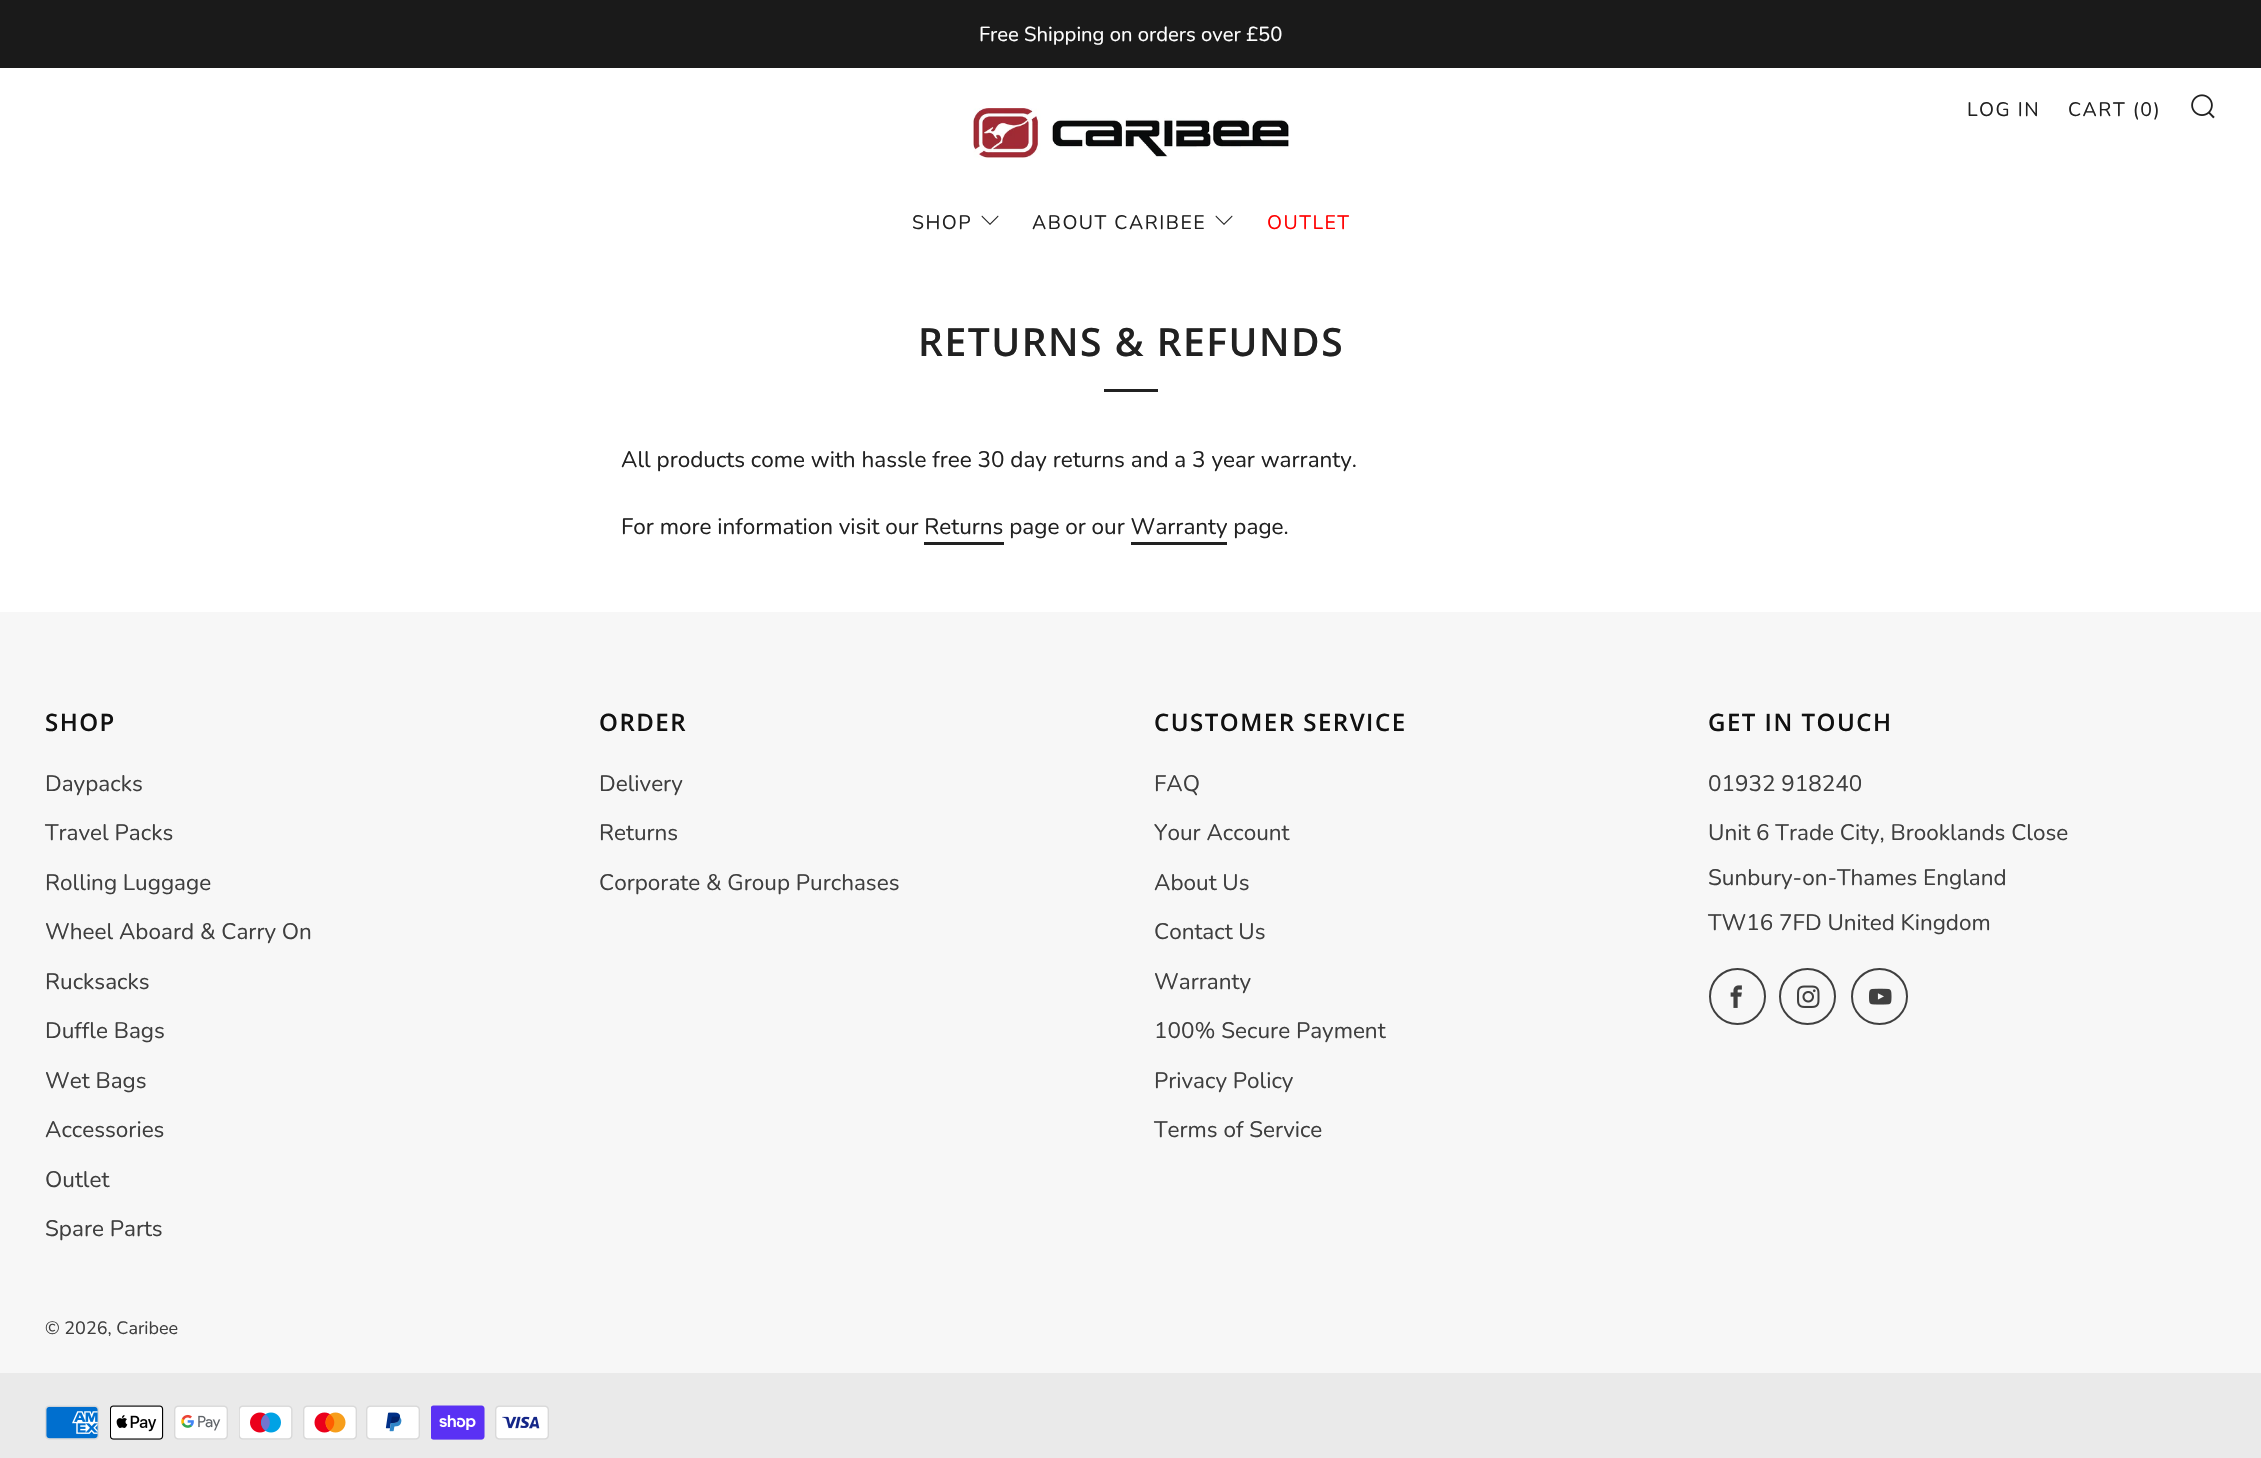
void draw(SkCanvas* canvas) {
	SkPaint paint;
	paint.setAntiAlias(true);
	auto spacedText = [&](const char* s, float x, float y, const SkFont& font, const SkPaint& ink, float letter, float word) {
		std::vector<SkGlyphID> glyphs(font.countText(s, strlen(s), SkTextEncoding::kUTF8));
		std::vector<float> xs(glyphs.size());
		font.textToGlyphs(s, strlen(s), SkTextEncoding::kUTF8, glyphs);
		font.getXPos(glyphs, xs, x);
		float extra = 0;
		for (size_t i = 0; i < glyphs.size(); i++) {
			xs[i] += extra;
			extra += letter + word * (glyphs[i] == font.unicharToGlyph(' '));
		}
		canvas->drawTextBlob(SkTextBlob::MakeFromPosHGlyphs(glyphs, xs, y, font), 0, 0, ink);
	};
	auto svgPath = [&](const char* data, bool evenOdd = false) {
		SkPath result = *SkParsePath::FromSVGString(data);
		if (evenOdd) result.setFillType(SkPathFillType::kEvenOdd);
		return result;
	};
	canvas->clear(0xffffffff);
	paint.setColor(0xff1a1a1a);
	canvas->drawRect(SkRect::MakeXYWH(0, 0, 2261, 68), paint);
	SkFont f1(fontMgr->matchFamilyStyle("Nunito", SkFontStyle::Normal()), 20.25);
	f1.setSubpixel(true);
	paint.setColor(0xffffffff);
	canvas->drawString("Free Shipping on orders over £50", 979, 41, f1, paint);
	SkFont f2(fontMgr->matchFamilyStyle("Nunito", SkFontStyle::Normal()), 19.5);
	f2.setSubpixel(true);
	paint.setColor(0xff212121);
	spacedText("LOG IN", 1967, 116, f2, paint, 1.5, 0);
	spacedText("CART (0)", 2068, 116, f2, paint, 1.5, 0);
	canvas->drawImageRect(SkImages::DeferredFromEncodedData(SkData::MakeFromFileName("img1.png")), SkRect::MakeXYWH(2191, 94, 24, 25), SkSamplingOptions());
	spacedText("SHOP", 912, 229, f2, paint, 1.5, 0);
	canvas->drawPath(svgPath("M982 215.5L981.5 216.5L990 225L998.5 216.5L998 215.5L990 223.5Z"), paint);
	spacedText("ABOUT CARIBEE", 1032, 229, f2, paint, 1.5, 0);
	canvas->drawPath(svgPath("M1216 215.5L1215.5 216.5L1224 225L1232.5 216.5L1232 215.5L1224 223.5Z"), paint);
	paint.setColor(0xffff0000);
	spacedText("OUTLET", 1267, 229, f2, paint, 1.5, 0);
	canvas->drawImageRect(SkImages::DeferredFromEncodedData(SkData::MakeFromFileName("img2.png")), SkRect::MakeXYWH(973, 108, 316, 50), SkSamplingOptions());
	SkFont f3(fontMgr->matchFamilyStyle("Open Sans", SkFontStyle(600, SkFontStyle::kNormal_Width, SkFontStyle::kUpright_Slant)), 39);
	f3.setSubpixel(true);
	paint.setColor(0xff212121);
	spacedText("RETURNS & REFUNDS", 918, 356, f3, paint, 1.5, 0);
	canvas->drawRect(SkRect::MakeXYWH(1104, 389, 54, 3), paint);
	SkFont f4(fontMgr->matchFamilyStyle("Nunito", SkFontStyle::Normal()), 22.5);
	f4.setSubpixel(true);
	canvas->drawString("All products come with hassle free 30 day returns and a 3 year warranty.", 621, 467, f4, paint);
	canvas->drawString("For more information visit our Returns page or our Warranty page.", 621, 534, f4, paint);
	canvas->drawRect(SkRect::MakeXYWH(924, 542, 80, 3), paint);
	canvas->drawRect(SkRect::MakeXYWH(1131, 542, 96, 3), paint);
	paint.setColor(0xfff7f7f7);
	canvas->drawRect(SkRect::MakeXYWH(0, 612, 2261, 761), paint);
	SkFont f5(fontMgr->matchFamilyStyle("Open Sans", SkFontStyle(600, SkFontStyle::kNormal_Width, SkFontStyle::kUpright_Slant)), 24);
	f5.setSubpixel(true);
	paint.setColor(0xff111111);
	spacedText("SHOP", 45, 731, f5, paint, 1.5, 0);
	paint.setColor(0xff3f3f3f);
	canvas->drawString("Daypacks", 45, 791, f4, paint);
	canvas->drawString("Travel Packs", 45, 840, f4, paint);
	canvas->drawString("Rolling Luggage", 45, 890, f4, paint);
	canvas->drawString("Wheel Aboard & Carry On", 45, 939, f4, paint);
	canvas->drawString("Rucksacks", 45, 989, f4, paint);
	canvas->drawString("Duffle Bags", 45, 1038, f4, paint);
	canvas->drawString("Wet Bags", 45, 1088, f4, paint);
	canvas->drawString("Accessories", 45, 1137, f4, paint);
	canvas->drawString("Outlet", 45, 1187, f4, paint);
	canvas->drawString("Spare Parts", 45, 1236, f4, paint);
	paint.setColor(0xff111111);
	spacedText("ORDER", 599, 731, f5, paint, 1.5, 0);
	paint.setColor(0xff3f3f3f);
	canvas->drawString("Delivery", 599, 791, f4, paint);
	canvas->drawString("Returns", 599, 840, f4, paint);
	canvas->drawString("Corporate & Group Purchases", 599, 890, f4, paint);
	paint.setColor(0xff111111);
	spacedText("CUSTOMER SERVICE", 1154, 731, f5, paint, 1.5, 0);
	paint.setColor(0xff3f3f3f);
	canvas->drawString("FAQ", 1154, 791, f4, paint);
	canvas->drawString("Your Account", 1154, 840, f4, paint);
	canvas->drawString("About Us", 1154, 890, f4, paint);
	canvas->drawString("Contact Us", 1154, 939, f4, paint);
	canvas->drawString("Warranty", 1154, 989, f4, paint);
	canvas->drawString("100% Secure Payment", 1154, 1038, f4, paint);
	canvas->drawString("Privacy Policy", 1154, 1088, f4, paint);
	canvas->drawString("Terms of Service", 1154, 1137, f4, paint);
	paint.setColor(0xff111111);
	spacedText("GET IN TOUCH", 1708, 731, f5, paint, 1.5, 0);
	paint.setColor(0xff3f3f3f);
	canvas->drawString("01932 918240", 1708, 791, f4, paint);
	canvas->drawString("Unit 6 Trade City, Brooklands Close", 1708, 840, f4, paint);
	canvas->drawString("Sunbury-on-Thames England", 1708, 885, f4, paint);
	canvas->drawString("TW16 7FD United Kingdom", 1708, 930, f4, paint);
	paint.setStroke(true);
	paint.setStrokeWidth(2);
	canvas->drawCircle(1737.5, 996.5, 27.5, paint);
	canvas->drawImageRect(SkImages::DeferredFromEncodedData(SkData::MakeFromFileName("img3.png")), SkRect::MakeXYWH(1730, 985, 12, 23), SkSamplingOptions());
	canvas->drawCircle(1807.5, 996.5, 27.5, paint);
	canvas->drawImageRect(SkImages::DeferredFromEncodedData(SkData::MakeFromFileName("img4.png")), SkRect::MakeXYWH(1797, 985, 23, 23), SkSamplingOptions());
	canvas->drawCircle(1879.5, 996.5, 27.5, paint);
	canvas->drawImageRect(SkImages::DeferredFromEncodedData(SkData::MakeFromFileName("img5.png")), SkRect::MakeXYWH(1869, 988, 23, 17), SkSamplingOptions());
	SkFont f6(fontMgr->matchFamilyStyle("Nunito", SkFontStyle::Normal()), 18);
	f6.setSubpixel(true);
	paint.setStroke(false);
	canvas->drawString("© 2026, Caribee", 45, 1334, f6, paint);
	paint.setColor(0xffeaeaea);
	canvas->drawRect(SkRect::MakeXYWH(0, 1373, 2261, 85), paint);
	canvas->drawImageRect(SkImages::DeferredFromEncodedData(SkData::MakeFromFileName("img6.png")), SkRect::MakeXYWH(45, 1405, 54, 35), SkSamplingOptions());
	canvas->drawImageRect(SkImages::DeferredFromEncodedData(SkData::MakeFromFileName("img7.png")), SkRect::MakeXYWH(110, 1405, 54, 35), SkSamplingOptions());
	canvas->drawImageRect(SkImages::DeferredFromEncodedData(SkData::MakeFromFileName("img8.png")), SkRect::MakeXYWH(174, 1405, 54, 35), SkSamplingOptions());
	canvas->drawImageRect(SkImages::DeferredFromEncodedData(SkData::MakeFromFileName("img9.png")), SkRect::MakeXYWH(239, 1405, 54, 35), SkSamplingOptions());
	canvas->drawImageRect(SkImages::DeferredFromEncodedData(SkData::MakeFromFileName("img10.png")), SkRect::MakeXYWH(303, 1405, 54, 35), SkSamplingOptions());
	canvas->drawImageRect(SkImages::DeferredFromEncodedData(SkData::MakeFromFileName("img11.png")), SkRect::MakeXYWH(366, 1405, 54, 35), SkSamplingOptions());
	canvas->drawImageRect(SkImages::DeferredFromEncodedData(SkData::MakeFromFileName("img12.png")), SkRect::MakeXYWH(431, 1405, 54, 35), SkSamplingOptions());
	canvas->drawImageRect(SkImages::DeferredFromEncodedData(SkData::MakeFromFileName("img13.png")), SkRect::MakeXYWH(495, 1405, 54, 35), SkSamplingOptions());
}
